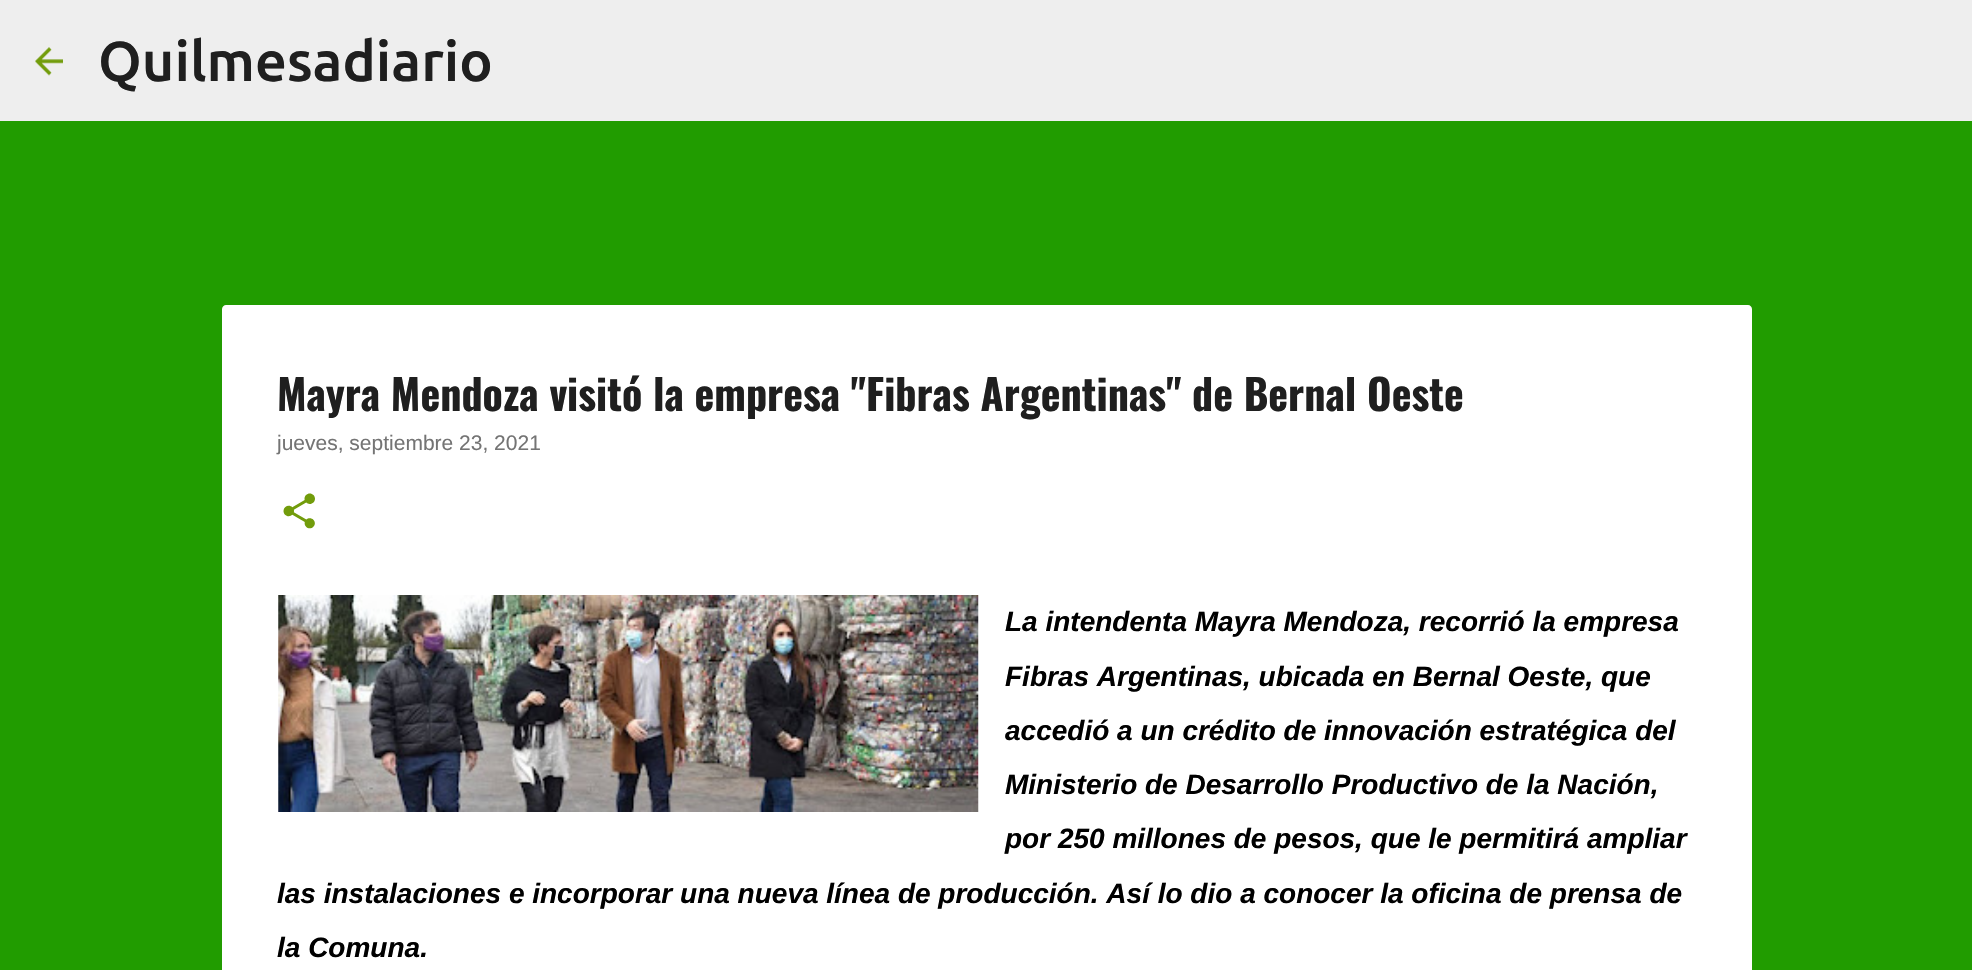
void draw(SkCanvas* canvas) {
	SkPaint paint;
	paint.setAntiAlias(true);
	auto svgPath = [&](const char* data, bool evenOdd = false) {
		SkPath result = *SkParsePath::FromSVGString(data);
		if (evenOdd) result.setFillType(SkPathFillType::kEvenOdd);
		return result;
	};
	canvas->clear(0xff219c00);
	paint.setColor(0xffeeeeee);
	canvas->drawRect(SkRect::MakeXYWH(0, 0, 1972, 121), paint);
	canvas->drawImageRect(SkImages::DeferredFromEncodedData(SkData::MakeFromFileName("img1.png")), SkRect::MakeXYWH(35, 47, 28, 29), SkSamplingOptions());
	SkFont f1(fontMgr->matchFamilyStyle("Ubuntu", SkFontStyle(500, SkFontStyle::kNormal_Width, SkFontStyle::kUpright_Slant)), 56);
	f1.setSubpixel(true);
	paint.setColor(0xff1f1f1f);
	canvas->drawString("Quilmesadiario", 98, 81, f1, paint);
	paint.setColor(0xffffffff);
	canvas->drawPath(svgPath("M226 305H1748C1750 305 1752 307 1752 309V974H222V309C222 307 224 305 226 305Z"), paint);
	SkFont f2(fontMgr->matchFamilyStyle("Oswald", SkFontStyle::Bold()), 42);
	f2.setSubpixel(true);
	paint.setColor(0xff1f1f1f);
	canvas->drawString("Mayra Mendoza visitó la empresa \"Fibras Argentinas\" de Bernal Oeste", 277, 411, f2, paint);
	SkFont f3(fontMgr->matchFamilyStyle("Liberation Sans", SkFontStyle::Normal()), 21);
	f3.setSubpixel(true);
	paint.setColor(0xff747474);
	canvas->drawString("jueves, septiembre 23, 2021", 277, 450, f3, paint);
	canvas->drawImageRect(SkImages::DeferredFromEncodedData(SkData::MakeFromFileName("img2.png")), SkRect::MakeXYWH(283, 493, 32, 36), SkSamplingOptions());
	canvas->drawImageRect(SkImages::DeferredFromEncodedData(SkData::MakeFromFileName("img3.png")), SkRect::MakeXYWH(278, 595, 701, 217), SkSamplingOptions());
	SkFont f4(fontMgr->matchFamilyStyle("Liberation Sans", SkFontStyle::BoldItalic()), 28);
	f4.setSubpixel(true);
	paint.setColor(0xff000000);
	canvas->drawString("La intendenta Mayra Mendoza, recorrió la empresa", 1005, 631, f4, paint);
	canvas->drawString("Fibras Argentinas, ubicada en Bernal Oeste, que", 1005, 686, f4, paint);
	canvas->drawString("accedió a un crédito de innovación estratégica del", 1005, 740, f4, paint);
	canvas->drawString("Ministerio de Desarrollo Productivo de la Nación,", 1005, 794, f4, paint);
	canvas->drawString("por 250 millones de pesos, que le permitirá ampliar", 1005, 848, f4, paint);
	canvas->drawString("las instalaciones e incorporar una nueva línea de producción. Así lo dio a conocer la oficina de prensa de", 277, 903, f4, paint);
	canvas->drawString("la Comuna.", 277, 957, f4, paint);
}
